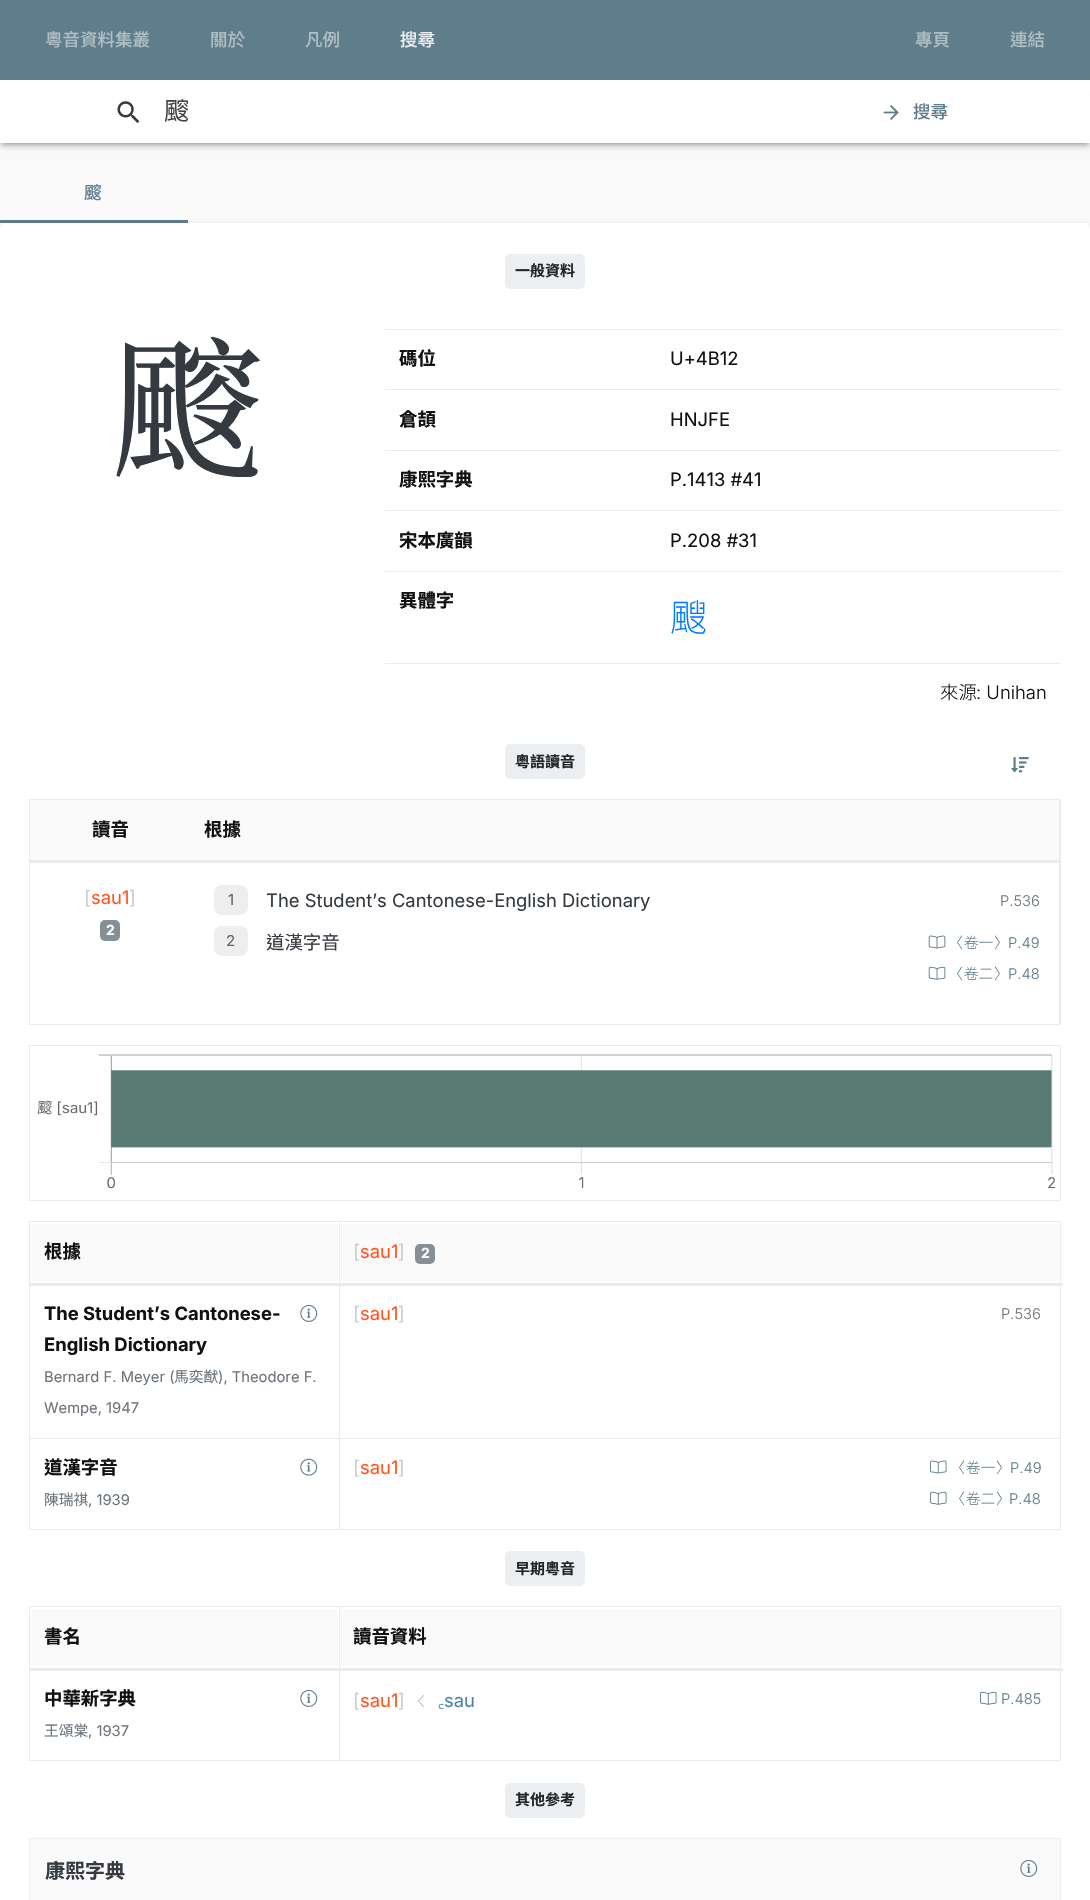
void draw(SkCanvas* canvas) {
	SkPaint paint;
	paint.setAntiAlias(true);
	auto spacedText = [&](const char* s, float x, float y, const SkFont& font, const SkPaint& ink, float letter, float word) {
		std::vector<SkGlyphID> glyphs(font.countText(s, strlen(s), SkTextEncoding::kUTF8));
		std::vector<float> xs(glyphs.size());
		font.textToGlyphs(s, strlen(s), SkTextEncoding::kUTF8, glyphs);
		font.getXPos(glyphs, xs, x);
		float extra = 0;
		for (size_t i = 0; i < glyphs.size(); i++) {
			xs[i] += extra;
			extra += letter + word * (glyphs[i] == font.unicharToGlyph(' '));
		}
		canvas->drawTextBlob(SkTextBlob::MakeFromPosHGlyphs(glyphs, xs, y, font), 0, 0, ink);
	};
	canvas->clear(0xfffafafa);
	paint.setColor(0x1f000000);
	paint.setMaskFilter(SkMaskFilter::MakeBlur(kNormal_SkBlurStyle, 5));
	canvas->drawRect(SkRect::MakeXYWH(0, 81, 1090, 63), paint);
	paint.setMaskFilter(nullptr);
	paint.setColor(0x24000000);
	paint.setMaskFilter(SkMaskFilter::MakeBlur(kNormal_SkBlurStyle, 2.5));
	canvas->drawRect(SkRect::MakeXYWH(0, 84, 1090, 62), paint);
	paint.setMaskFilter(nullptr);
	paint.setColor(0x33000000);
	paint.setMaskFilter(SkMaskFilter::MakeBlur(kNormal_SkBlurStyle, 2));
	canvas->drawRect(SkRect::MakeXYWH(3, 86, 1085, 58), paint);
	paint.setMaskFilter(nullptr);
	paint.setColor(0xff607d8b);
	canvas->drawRect(SkRect::MakeXYWH(0, 0, 1090, 80), paint);
	SkFont f1(fontMgr->matchFamilyStyle("Chiron Hei HK", SkFontStyle(500, SkFontStyle::kNormal_Width, SkFontStyle::kUpright_Slant)), 17.5);
	f1.setSubpixel(true);
	paint.setColor(0xffb0bec5);
	canvas->drawString("粵音資料集叢", 45, 46, f1, paint);
	canvas->drawString("關於", 210, 46, f1, paint);
	canvas->drawString("凡例", 305, 46, f1, paint);
	paint.setColor(0xffeceff1);
	canvas->drawString("搜尋", 400, 46, f1, paint);
	paint.setColor(0xffb0bec5);
	canvas->drawString("專頁", 915, 46, f1, paint);
	canvas->drawString("連結", 1010, 46, f1, paint);
	paint.setColor(0xffffffff);
	canvas->drawRect(SkRect::MakeXYWH(0, 80, 1090, 63), paint);
	canvas->drawImageRect(SkImages::DeferredFromEncodedData(SkData::MakeFromFileName("img1.png")), SkRect::MakeXYWH(117, 101, 23, 22), SkSamplingOptions());
	SkFont f2(fontMgr->matchFamilyStyle("Chiron Hei HK", SkFontStyle::Normal()), 25);
	f2.setSubpixel(true);
	paint.setColor(0xff434343);
	canvas->drawString("䬒", 164, 120, f2, paint);
	canvas->drawImageRect(SkImages::DeferredFromEncodedData(SkData::MakeFromFileName("img2.png")), SkRect::MakeXYWH(883, 105, 16, 15), SkSamplingOptions());
	paint.setColor(0xff607d8b);
	canvas->drawString("搜尋", 913, 118, f1, paint);
	spacedText("䬒", 84, 199, f1, paint, 2, 0);
	canvas->drawRect(SkRect::MakeXYWH(0, 220, 188, 3), paint);
	paint.setColor(0x1f000000);
	paint.setMaskFilter(SkMaskFilter::MakeBlur(kNormal_SkBlurStyle, 2));
	canvas->drawRoundRect(SkRect::MakeXYWH(0, 224, 1090, 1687), 5, 5, paint);
	paint.setMaskFilter(nullptr);
	paint.setColor(0xffffffff);
	canvas->drawRoundRect(SkRect::MakeXYWH(0, 223, 1090, 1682), 5, 5, paint);
	paint.setColor(0xffeceff1);
	canvas->drawRoundRect(SkRect::MakeXYWH(505, 254, 80, 35), 5, 5, paint);
	SkFont f3(fontMgr->matchFamilyStyle("Chiron Hei HK", SkFontStyle::Bold()), 15);
	f3.setSubpixel(true);
	paint.setColor(0xff212529);
	canvas->drawString("一般資料", 515, 276, f3, paint);
	SkFont f4(fontMgr->matchFamilyStyle("Chiron Sung HK", SkFontStyle(500, SkFontStyle::kNormal_Width, SkFontStyle::kUpright_Slant)), 150);
	f4.setSubpixel(true);
	paint.setColor(0xff343a40);
	canvas->drawString("䬒", 113, 464, f4, paint);
	SkFont f5(fontMgr->matchFamilyStyle("Chiron Hei HK", SkFontStyle::Bold()), 18.4);
	f5.setSubpixel(true);
	paint.setColor(0xff111111);
	canvas->drawString("碼位", 399, 365, f5, paint);
	paint.setColor(0xffe9ecef);
	canvas->drawRect(SkRect::MakeXYWH(385, 329, 676, 1), paint);
	SkFont f6(fontMgr->matchFamilyStyle("Inter", SkFontStyle::Normal()), 18.4);
	f6.setSubpixel(true);
	paint.setColor(0xff111111);
	canvas->drawString("U+4B12", 670, 365, f6, paint);
	canvas->drawString("倉頡", 399, 426, f5, paint);
	paint.setColor(0xffe9ecef);
	canvas->drawRect(SkRect::MakeXYWH(385, 389, 676, 1), paint);
	paint.setColor(0xff111111);
	canvas->drawString("HNJFE", 670, 426, f6, paint);
	canvas->drawString("康熙字典", 399, 486, f5, paint);
	paint.setColor(0xffe9ecef);
	canvas->drawRect(SkRect::MakeXYWH(385, 450, 676, 1), paint);
	paint.setColor(0xff111111);
	canvas->drawString("P.1413 #41", 670, 486, f6, paint);
	canvas->drawString("宋本廣韻", 399, 547, f5, paint);
	paint.setColor(0xffe9ecef);
	canvas->drawRect(SkRect::MakeXYWH(385, 510, 676, 1), paint);
	paint.setColor(0xff111111);
	canvas->drawString("P.208 #31", 670, 547, f6, paint);
	canvas->drawString("異體字", 399, 607, f5, paint);
	paint.setColor(0xffe9ecef);
	canvas->drawRect(SkRect::MakeXYWH(385, 571, 676, 1), paint);
	SkFont f7(fontMgr->matchFamilyStyle("Chiron Hei HK", SkFontStyle(300, SkFontStyle::kNormal_Width, SkFontStyle::kUpright_Slant)), 37);
	f7.setSubpixel(true);
	paint.setColor(0xff007bff);
	canvas->drawString("颼", 670, 631, f7, paint);
	paint.setColor(0xffe9ecef);
	canvas->drawRect(SkRect::MakeXYWH(385, 663, 676, 1), paint);
	SkFont f8(fontMgr->matchFamilyStyle("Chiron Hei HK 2", SkFontStyle(300, SkFontStyle::kNormal_Width, SkFontStyle::kUpright_Slant)), 18.4);
	f8.setSubpixel(true);
	paint.setColor(0xff111111);
	canvas->drawString("來源", 940, 699, f8, paint);
	SkFont f9(fontMgr->matchFamilyStyle("Inter", SkFontStyle(300, SkFontStyle::kNormal_Width, SkFontStyle::kUpright_Slant)), 18.4);
	f9.setSubpixel(true);
	canvas->drawString(": Unihan", 976, 699, f9, paint);
	paint.setColor(0xffeceff1);
	canvas->drawRoundRect(SkRect::MakeXYWH(505, 744, 80, 35), 5, 5, paint);
	paint.setColor(0xff212529);
	canvas->drawString("粵語讀音", 515, 767, f3, paint);
	canvas->drawImageRect(SkImages::DeferredFromEncodedData(SkData::MakeFromFileName("img3.png")), SkRect::MakeXYWH(1011, 757, 18, 16), SkSamplingOptions());
	paint.setStroke(true);
	paint.setStrokeWidth(1);
	paint.setColor(0xffe9ecef);
	canvas->drawRect(SkRect::MakeXYWH(29.5, 799.5, 1031, 225), paint);
	paint.setStroke(false);
	canvas->drawRect(SkRect::MakeXYWH(1059, 800, 1, 224), paint);
	paint.setColor(0xfffafafa);
	canvas->drawRect(SkRect::MakeXYWH(30, 800, 1029, 60), paint);
	paint.setColor(0xff111111);
	canvas->drawString("讀音", 92, 836, f5, paint);
	paint.setColor(0xffe9ecef);
	canvas->drawRect(SkRect::MakeXYWH(29, 860, 1031, 3), paint);
	paint.setColor(0xff111111);
	canvas->drawString("根據", 204, 836, f5, paint);
	paint.setColor(0xffcccccc);
	canvas->drawString("[", 84, 904, f6, paint);
	paint.setColor(0xffff5722);
	canvas->drawString("sau1", 91, 904, f6, paint);
	paint.setColor(0xffcccccc);
	canvas->drawString("]", 129, 904, f6, paint);
	paint.setColor(0xff868e96);
	canvas->drawRoundRect(SkRect::MakeXYWH(100, 920, 20, 21), 5, 5, paint);
	SkFont f10(fontMgr->matchFamilyStyle("Inter", SkFontStyle::Bold()), 14);
	f10.setSubpixel(true);
	paint.setColor(0xffffffff);
	canvas->drawString("2", 106, 935, f10, paint);
	paint.setColor(0xffeeeeee);
	canvas->drawRoundRect(SkRect::MakeXYWH(214, 885, 34, 30), 8, 8, paint);
	SkFont f11(fontMgr->matchFamilyStyle("Inter", SkFontStyle::Normal()), 15);
	f11.setSubpixel(true);
	paint.setColor(0xff666666);
	canvas->drawString("1", 228, 905, f11, paint);
	paint.setColor(0xff343a40);
	canvas->drawString("The Student’s Cantonese-English Dictionary", 266, 907, f6, paint);
	SkFont f12(fontMgr->matchFamilyStyle("Inter", SkFontStyle(300, SkFontStyle::kNormal_Width, SkFontStyle::kUpright_Slant)), 14.75);
	f12.setSubpixel(true);
	paint.setColor(0xff6c757d);
	canvas->drawString("P.536", 1000, 906, f12, paint);
	paint.setColor(0xffeeeeee);
	canvas->drawRoundRect(SkRect::MakeXYWH(214, 926, 34, 30), 8, 8, paint);
	paint.setColor(0xff666666);
	canvas->drawString("2", 226, 946, f11, paint);
	SkFont f13(fontMgr->matchFamilyStyle("Chiron Hei HK", SkFontStyle::Normal()), 18.4);
	f13.setSubpixel(true);
	paint.setColor(0xff343a40);
	canvas->drawString("道漢字音", 266, 949, f13, paint);
	canvas->drawImageRect(SkImages::DeferredFromEncodedData(SkData::MakeFromFileName("img4.png")), SkRect::MakeXYWH(928, 935, 18, 14), SkSamplingOptions());
	SkFont f14(fontMgr->matchFamilyStyle("Chiron Hei HK 2", SkFontStyle(300, SkFontStyle::kNormal_Width, SkFontStyle::kUpright_Slant)), 14.75);
	f14.setSubpixel(true);
	paint.setColor(0xff607d8b);
	canvas->drawString("〈卷一〉", 949, 948, f14, paint);
	canvas->drawString("P.49", 1008, 948, f12, paint);
	canvas->drawImageRect(SkImages::DeferredFromEncodedData(SkData::MakeFromFileName("img5.png")), SkRect::MakeXYWH(928, 966, 18, 14), SkSamplingOptions());
	canvas->drawString("〈卷二〉", 949, 979, f14, paint);
	canvas->drawString("P.48", 1008, 979, f12, paint);
	paint.setStroke(true);
	paint.setColor(0xffe9ecef);
	canvas->drawRect(SkRect::MakeXYWH(29.5, 1045.5, 1031, 155), paint);
	canvas->drawImageRect(SkImages::DeferredFromEncodedData(SkData::MakeFromFileName("img6.png")), SkRect::MakeXYWH(37, 1054, 1019, 135), SkSamplingOptions());
	paint.setStroke(false);
	canvas->drawRect(SkRect::MakeXYWH(29, 1221, 1032, 1), paint);
	canvas->drawRect(SkRect::MakeXYWH(1060, 1221, 1, 309), paint);
	canvas->drawRect(SkRect::MakeXYWH(29, 1529, 1032, 1), paint);
	canvas->drawRect(SkRect::MakeXYWH(29, 1221, 1, 309), paint);
	paint.setColor(0xfffafafa);
	canvas->drawRect(SkRect::MakeXYWH(31, 1224, 307, 57), paint);
	paint.setColor(0xff111111);
	canvas->drawString("根據", 44, 1258, f5, paint);
	paint.setColor(0xfffafafa);
	canvas->drawRect(SkRect::MakeXYWH(340, 1224, 720, 57), paint);
	paint.setColor(0xffe9ecef);
	canvas->drawRect(SkRect::MakeXYWH(339, 1438, 722, 1), paint);
	canvas->drawRect(SkRect::MakeXYWH(339, 1438, 1, 92), paint);
	canvas->drawRect(SkRect::MakeXYWH(29, 1438, 311, 1), paint);
	canvas->drawRect(SkRect::MakeXYWH(339, 1221, 1, 218), paint);
	canvas->drawRect(SkRect::MakeXYWH(29, 1283, 1034, 3), paint);
	paint.setColor(0xffcccccc);
	canvas->drawString("[", 353, 1258, f6, paint);
	paint.setColor(0xffff5722);
	canvas->drawString("sau1", 360, 1258, f6, paint);
	paint.setColor(0xffcccccc);
	canvas->drawString("]", 398, 1258, f6, paint);
	paint.setColor(0xff868e96);
	canvas->drawRoundRect(SkRect::MakeXYWH(415, 1244, 20, 20), 5, 5, paint);
	paint.setColor(0xffffffff);
	canvas->drawString("2", 421, 1258, f10, paint);
	SkFont f15(fontMgr->matchFamilyStyle("Inter", SkFontStyle::Bold()), 18.4);
	f15.setSubpixel(true);
	paint.setColor(0xff111111);
	canvas->drawString("The Student’s Cantonese-", 44, 1320, f15, paint);
	canvas->drawImageRect(SkImages::DeferredFromEncodedData(SkData::MakeFromFileName("img7.png")), SkRect::MakeXYWH(300, 1305, 18, 17), SkSamplingOptions());
	canvas->drawString("English Dictionary", 44, 1351, f15, paint);
	SkFont f16(fontMgr->matchFamilyStyle("Inter", SkFontStyle::Normal()), 14.75);
	f16.setSubpixel(true);
	paint.setColor(0xff6c757d);
	canvas->drawString("Bernard F. Meyer (", 44, 1382, f16, paint);
	SkFont f17(fontMgr->matchFamilyStyle("Chiron Hei HK", SkFontStyle::Normal()), 14.75);
	f17.setSubpixel(true);
	canvas->drawString("馬奕猷", 174, 1382, f17, paint);
	canvas->drawString("), Theodore F.", 218, 1382, f16, paint);
	canvas->drawString("Wempe, 1947", 44, 1413, f16, paint);
	paint.setColor(0xffcccccc);
	canvas->drawString("[", 353, 1320, f6, paint);
	paint.setColor(0xffff5722);
	canvas->drawString("sau1", 360, 1320, f6, paint);
	paint.setColor(0xffcccccc);
	canvas->drawString("]", 398, 1320, f6, paint);
	paint.setColor(0xff6c757d);
	canvas->drawString("P.536", 1001, 1319, f12, paint);
	paint.setColor(0xff111111);
	canvas->drawString("道漢字音", 44, 1474, f5, paint);
	canvas->drawImageRect(SkImages::DeferredFromEncodedData(SkData::MakeFromFileName("img8.png")), SkRect::MakeXYWH(300, 1458, 18, 18), SkSamplingOptions());
	paint.setColor(0xff6c757d);
	canvas->drawString("陳瑞祺", 44, 1505, f17, paint);
	canvas->drawString(", 1939", 88, 1505, f16, paint);
	paint.setColor(0xffcccccc);
	canvas->drawString("[", 353, 1474, f6, paint);
	paint.setColor(0xffff5722);
	canvas->drawString("sau1", 360, 1474, f6, paint);
	paint.setColor(0xffcccccc);
	canvas->drawString("]", 398, 1474, f6, paint);
	canvas->drawImageRect(SkImages::DeferredFromEncodedData(SkData::MakeFromFileName("img9.png")), SkRect::MakeXYWH(930, 1460, 17, 14), SkSamplingOptions());
	paint.setColor(0xff607d8b);
	canvas->drawString("〈卷一〉", 951, 1473, f14, paint);
	canvas->drawString("P.49", 1010, 1473, f12, paint);
	canvas->drawImageRect(SkImages::DeferredFromEncodedData(SkData::MakeFromFileName("img10.png")), SkRect::MakeXYWH(930, 1491, 17, 14), SkSamplingOptions());
	canvas->drawString("〈卷二〉", 951, 1504, f14, paint);
	canvas->drawString("P.48", 1009, 1504, f12, paint);
	paint.setColor(0xffeceff1);
	canvas->drawRoundRect(SkRect::MakeXYWH(505, 1551, 80, 35), 5, 5, paint);
	paint.setColor(0xff212529);
	canvas->drawString("早期粵音", 515, 1574, f3, paint);
	paint.setColor(0xffe9ecef);
	canvas->drawRect(SkRect::MakeXYWH(29, 1606, 1032, 1), paint);
	canvas->drawRect(SkRect::MakeXYWH(1060, 1606, 1, 155), paint);
	canvas->drawRect(SkRect::MakeXYWH(29, 1760, 1032, 1), paint);
	canvas->drawRect(SkRect::MakeXYWH(29, 1606, 1, 155), paint);
	paint.setColor(0xfffafafa);
	canvas->drawRect(SkRect::MakeXYWH(31, 1609, 307, 57), paint);
	paint.setColor(0xff111111);
	canvas->drawString("書名", 44, 1643, f5, paint);
	paint.setColor(0xfffafafa);
	canvas->drawRect(SkRect::MakeXYWH(340, 1609, 720, 57), paint);
	paint.setColor(0xffe9ecef);
	canvas->drawRect(SkRect::MakeXYWH(339, 1606, 1, 155), paint);
	canvas->drawRect(SkRect::MakeXYWH(29, 1668, 1034, 3), paint);
	paint.setColor(0xff111111);
	canvas->drawString("讀音資料", 353, 1643, f5, paint);
	canvas->drawString("中華新字典", 44, 1705, f5, paint);
	canvas->drawImageRect(SkImages::DeferredFromEncodedData(SkData::MakeFromFileName("img7.png")), SkRect::MakeXYWH(300, 1690, 18, 17), SkSamplingOptions());
	paint.setColor(0xff6c757d);
	canvas->drawString("王頌棠", 44, 1736, f17, paint);
	canvas->drawString(", 1937", 88, 1736, f16, paint);
	paint.setColor(0xffcccccc);
	canvas->drawString("[", 353, 1707, f6, paint);
	paint.setColor(0xffff5722);
	canvas->drawString("sau1", 360, 1707, f6, paint);
	paint.setColor(0xffcccccc);
	canvas->drawString("]", 398, 1707, f6, paint);
	canvas->drawImageRect(SkImages::DeferredFromEncodedData(SkData::MakeFromFileName("img11.png")), SkRect::MakeXYWH(417, 1695, 8, 12), SkSamplingOptions());
	SkFont f18(fontMgr->matchFamilyStyle("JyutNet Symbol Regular", SkFontStyle::Normal()), 18.4);
	f18.setSubpixel(true);
	paint.setColor(0xff4786a7);
	canvas->drawString("꜀", 438, 1707, f18, paint);
	canvas->drawString("sau", 444, 1707, f6, paint);
	canvas->drawImageRect(SkImages::DeferredFromEncodedData(SkData::MakeFromFileName("img10.png")), SkRect::MakeXYWH(980, 1691, 17, 14), SkSamplingOptions());
	paint.setColor(0xff607d8b);
	canvas->drawString("P.485", 1001, 1704, f12, paint);
	paint.setColor(0xffeceff1);
	canvas->drawRoundRect(SkRect::MakeXYWH(505, 1783, 80, 35), 5, 5, paint);
	paint.setColor(0xff212529);
	canvas->drawString("其他參考", 515, 1805, f3, paint);
	paint.setColor(0xfffafafa);
	canvas->drawRect(SkRect::MakeXYWH(29.5, 1838.5, 1031, 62), paint);
	paint.setStroke(true);
	paint.setColor(0xffeeeeee);
	canvas->drawRect(SkRect::MakeXYWH(29.5, 1838.5, 1031, 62), paint);
	SkFont f19(fontMgr->matchFamilyStyle("Chiron Hei HK", SkFontStyle::Bold()), 20);
	f19.setSubpixel(true);
	paint.setStroke(false);
	paint.setColor(0xff343a40);
	canvas->drawString("康熙字典", 45, 1878, f19, paint);
	canvas->drawImageRect(SkImages::DeferredFromEncodedData(SkData::MakeFromFileName("img12.png")), SkRect::MakeXYWH(1020, 1860, 18, 17), SkSamplingOptions());
}
